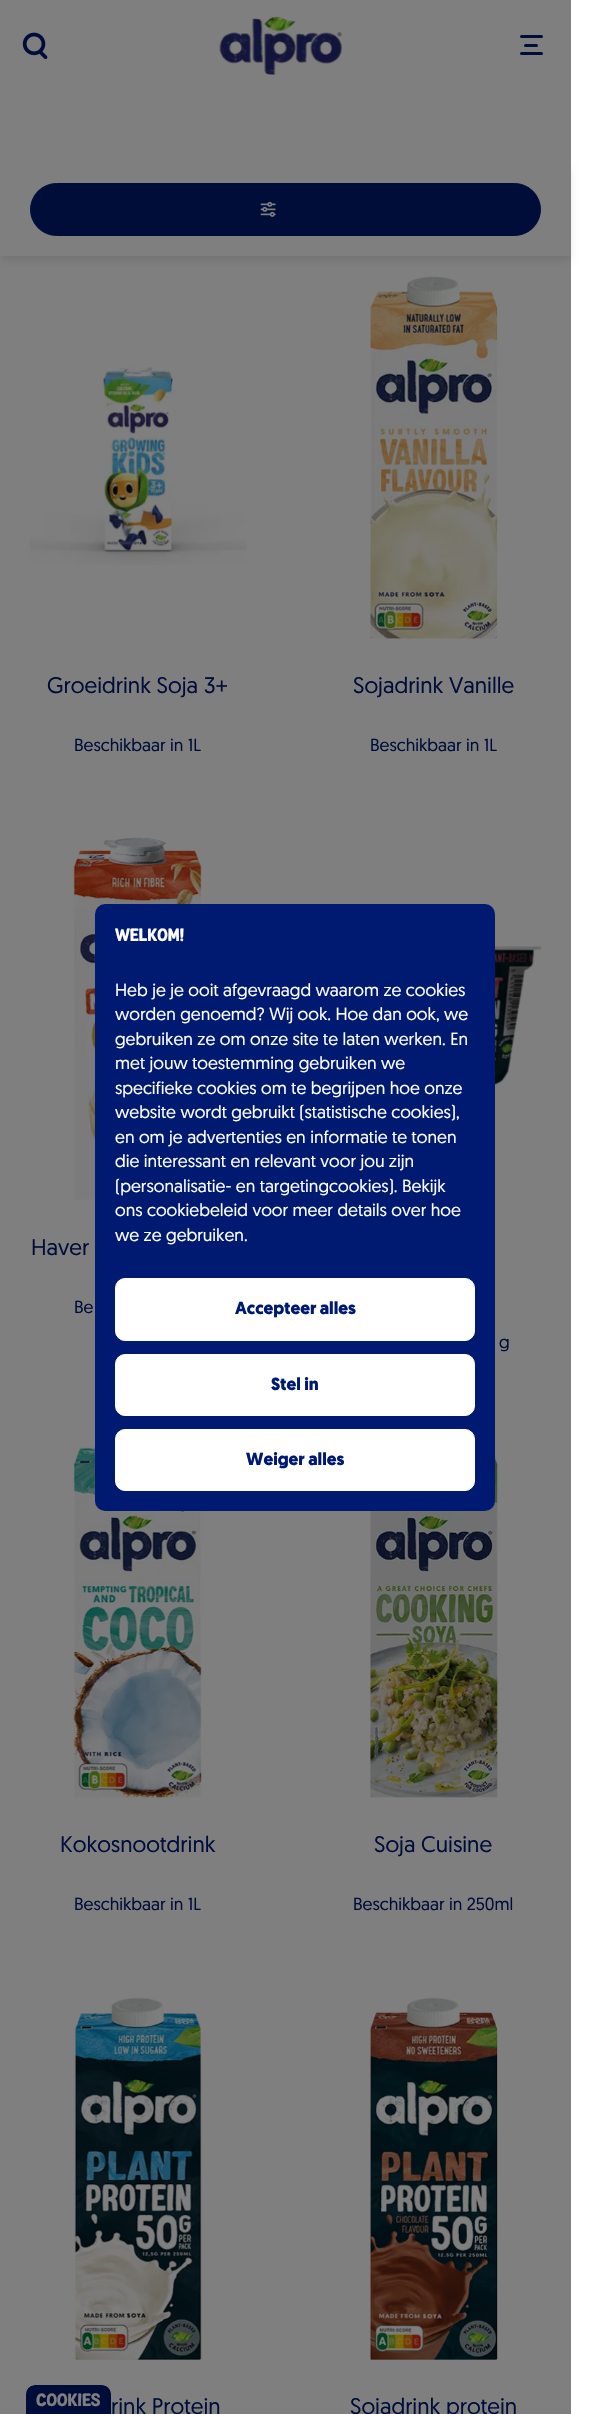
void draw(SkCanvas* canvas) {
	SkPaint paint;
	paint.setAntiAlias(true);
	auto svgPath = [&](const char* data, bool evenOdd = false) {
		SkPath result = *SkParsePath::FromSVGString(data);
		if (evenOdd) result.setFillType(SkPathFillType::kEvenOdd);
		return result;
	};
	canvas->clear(0xffffffff);
	canvas->drawImageRect(SkImages::DeferredFromEncodedData(SkData::MakeFromFileName("img1.png")), SkRect::MakeXYWH(22, 32, 26, 28), SkSamplingOptions());
	canvas->drawImageRect(SkImages::DeferredFromEncodedData(SkData::MakeFromFileName("img2.png")), SkRect::MakeXYWH(219, 16, 124, 59), SkSamplingOptions());
	paint.setColor(0xff001a71);
	canvas->drawRoundRect(SkRect::MakeXYWH(520, 35, 23, 3), 1.5, 1.5, paint);
	canvas->drawRoundRect(SkRect::MakeXYWH(524, 44, 14, 3), 1.5, 1.5, paint);
	canvas->drawRoundRect(SkRect::MakeXYWH(520, 52, 23, 3), 1.5, 1.5, paint);
	canvas->save();
	canvas->clipPath(svgPath("M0 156H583V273H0ZM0 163H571V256H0Z", true), true);
	paint.setColor(0x1a000000);
	paint.setMaskFilter(SkMaskFilter::MakeBlur(kNormal_SkBlurStyle, 4));
	canvas->drawRect(SkRect::MakeXYWH(1, 169, 569, 91), paint);
	paint.setMaskFilter(nullptr);
	canvas->restore();
	paint.setColor(0xff001a71);
	canvas->drawRoundRect(SkRect::MakeXYWH(30.5, 183.5, 510, 52), 26, 26, paint);
	paint.setStroke(true);
	paint.setStrokeWidth(1);
	canvas->drawRoundRect(SkRect::MakeXYWH(30.5, 183.5, 510, 52), 26, 26, paint);
	canvas->drawImageRect(SkImages::DeferredFromEncodedData(SkData::MakeFromFileName("img3.png")), SkRect::MakeXYWH(260, 201, 16, 16), SkSamplingOptions());
	canvas->drawImageRect(SkImages::DeferredFromEncodedData(SkData::MakeFromFileName("img4.png")), SkRect::MakeXYWH(30, 366, 217, 199), SkSamplingOptions());
	SkFont f1(fontMgr->matchFamilyStyle("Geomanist", SkFontStyle::Normal()), 22.5);
	f1.setSubpixel(true);
	paint.setStroke(false);
	canvas->drawString("Groeidrink Soja 3+", 47, 693, f1, paint);
	SkFont f2(fontMgr->matchFamilyStyle("Geomanist", SkFontStyle::Normal()), 17.5);
	f2.setSubpixel(true);
	canvas->drawString("Beschikbaar in 1L", 74, 751, f2, paint);
	canvas->drawImageRect(SkImages::DeferredFromEncodedData(SkData::MakeFromFileName("img5.png")), SkRect::MakeXYWH(370, 276, 128, 363), SkSamplingOptions());
	canvas->drawString("Sojadrink Vanille", 353, 693, f1, paint);
	canvas->drawString("Beschikbaar in 1L", 370, 751, f2, paint);
	canvas->drawImageRect(SkImages::DeferredFromEncodedData(SkData::MakeFromFileName("img6.png")), SkRect::MakeXYWH(73, 837, 129, 364), SkSamplingOptions());
	canvas->drawString("Haver", 31, 1255, f1, paint);
	canvas->drawString("Be", 74, 1313, f2, paint);
	canvas->drawImageRect(SkImages::DeferredFromEncodedData(SkData::MakeFromFileName("img7.png")), SkRect::MakeXYWH(495, 946, 47, 139), SkSamplingOptions());
	canvas->drawString("g", 499, 1348, f2, paint);
	canvas->drawImageRect(SkImages::DeferredFromEncodedData(SkData::MakeFromFileName("img8.png")), SkRect::MakeXYWH(73, 1447, 129, 351), SkSamplingOptions());
	canvas->drawString("Kokosnootdrink", 60, 1852, f1, paint);
	canvas->drawString("Beschikbaar in 1L", 74, 1910, f2, paint);
	canvas->drawImageRect(SkImages::DeferredFromEncodedData(SkData::MakeFromFileName("img9.png")), SkRect::MakeXYWH(370, 1457, 128, 341), SkSamplingOptions());
	canvas->drawString("Soja Cuisine", 374, 1852, f1, paint);
	canvas->drawString("Beschikbaar in 250ml", 353, 1910, f2, paint);
	canvas->drawImageRect(SkImages::DeferredFromEncodedData(SkData::MakeFromFileName("img10.png")), SkRect::MakeXYWH(74, 1997, 128, 363), SkSamplingOptions());
	canvas->drawString("rink Protein", 111, 2414, f1, paint);
	canvas->drawImageRect(SkImages::DeferredFromEncodedData(SkData::MakeFromFileName("img11.png")), SkRect::MakeXYWH(370, 1997, 128, 363), SkSamplingOptions());
	canvas->drawString("Sojadrink protein", 350, 2414, f1, paint);
	canvas->drawPath(svgPath("M35 2385H102C107 2385 111 2389 111 2394V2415H26V2394C26 2389 30 2385 35 2385Z"), paint);
	paint.setColor(0xffffffff);
	canvas->drawPath(svgPath("M35 2384H102C108 2384 112 2388 112 2394V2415H25V2394C25 2388 29 2384 35 2384ZM35 2385H102C107 2385 111 2389 111 2394V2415H26V2394C26 2389 30 2385 35 2385Z", true), paint);
	SkFont f3(fontMgr->matchFamilyStyle("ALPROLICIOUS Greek", SkFontStyle::Normal()), 17.5);
	f3.setSubpixel(true);
	canvas->drawString("Cookies", 36, 2406, f3, paint);
	paint.setColor(0x80000000);
	canvas->drawRect(SkRect::MakeXYWH(0, 0, 571, 2414), paint);
	paint.setColor(0xff001a71);
	canvas->drawRoundRect(SkRect::MakeXYWH(95, 904, 400, 607), 10, 10, paint);
	paint.setColor(0xffffffff);
	canvas->drawString("Welkom!", 115, 941, f3, paint);
	canvas->drawString("Heb je je ooit afgevraagd waarom ze cookies", 115, 996, f2, paint);
	canvas->drawString("worden genoemd? Wij ook. Hoe dan ook, we", 115, 1020, f2, paint);
	canvas->drawString("gebruiken ze om onze site te laten werken. En", 115, 1045, f2, paint);
	canvas->drawString("met jouw toestemming gebruiken we", 115, 1069, f2, paint);
	canvas->drawString("specifieke cookies om te begrijpen hoe onze", 115, 1094, f2, paint);
	canvas->drawString("website wordt gebruikt (statistische cookies),", 115, 1118, f2, paint);
	canvas->drawString("en om je advertenties en informatie te tonen", 115, 1143, f2, paint);
	canvas->drawString("die interessant en relevant voor jou zijn", 115, 1167, f2, paint);
	canvas->drawString("(personalisatie- en targetingcookies). Bekijk", 115, 1192, f2, paint);
	canvas->drawString("ons cookiebeleid voor meer details over hoe", 115, 1216, f2, paint);
	canvas->drawString("we ze gebruiken.", 115, 1241, f2, paint);
	canvas->drawRoundRect(SkRect::MakeXYWH(115.5, 1278.5, 359, 62), 9.5, 9.5, paint);
	paint.setStroke(true);
	canvas->drawRoundRect(SkRect::MakeXYWH(115.5, 1278.5, 359, 62), 9.5, 9.5, paint);
	SkFont f4(fontMgr->matchFamilyStyle("Geomanist", SkFontStyle::Bold()), 17.5);
	f4.setSubpixel(true);
	paint.setStroke(false);
	paint.setColor(0xff001a71);
	canvas->drawString("Accepteer alles", 235, 1314, f4, paint);
	paint.setColor(0xffffffff);
	canvas->drawRoundRect(SkRect::MakeXYWH(115.5, 1354.5, 359, 61), 9.5, 9.5, paint);
	paint.setStroke(true);
	canvas->drawRoundRect(SkRect::MakeXYWH(115.5, 1354.5, 359, 61), 9.5, 9.5, paint);
	paint.setStroke(false);
	paint.setColor(0xff001a71);
	canvas->drawString("Stel in", 271, 1390, f4, paint);
	paint.setColor(0xffffffff);
	canvas->drawRoundRect(SkRect::MakeXYWH(115.5, 1429.5, 359, 61), 9.5, 9.5, paint);
	paint.setStroke(true);
	canvas->drawRoundRect(SkRect::MakeXYWH(115.5, 1429.5, 359, 61), 9.5, 9.5, paint);
	paint.setStroke(false);
	paint.setColor(0xff001a71);
	canvas->drawString("Weiger alles", 246, 1465, f4, paint);
}
